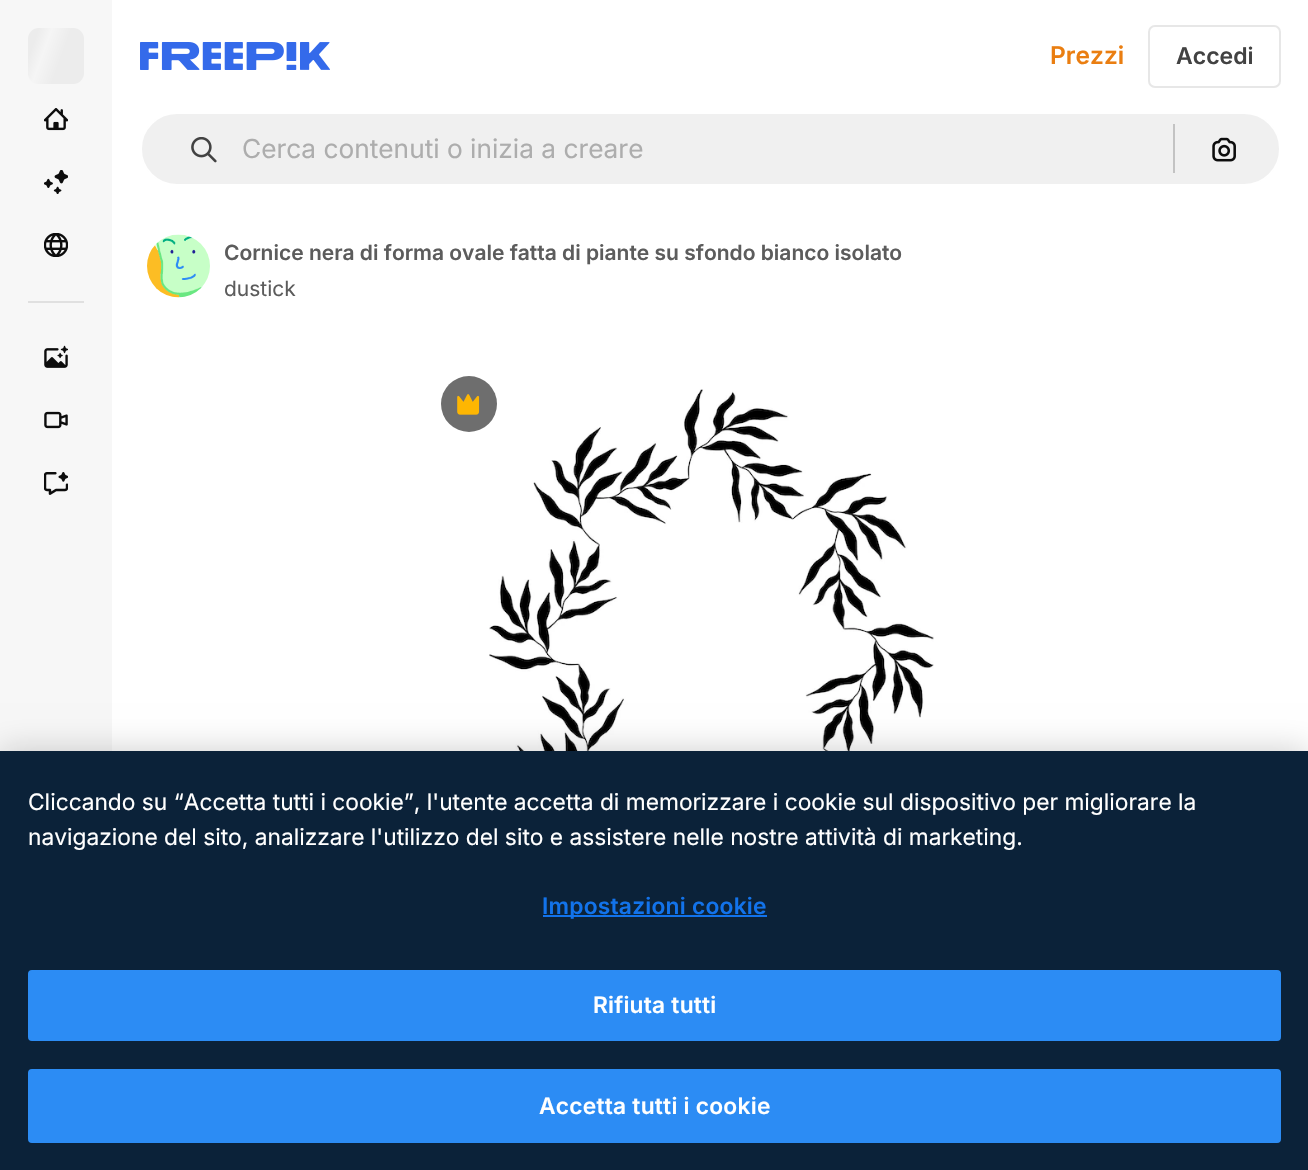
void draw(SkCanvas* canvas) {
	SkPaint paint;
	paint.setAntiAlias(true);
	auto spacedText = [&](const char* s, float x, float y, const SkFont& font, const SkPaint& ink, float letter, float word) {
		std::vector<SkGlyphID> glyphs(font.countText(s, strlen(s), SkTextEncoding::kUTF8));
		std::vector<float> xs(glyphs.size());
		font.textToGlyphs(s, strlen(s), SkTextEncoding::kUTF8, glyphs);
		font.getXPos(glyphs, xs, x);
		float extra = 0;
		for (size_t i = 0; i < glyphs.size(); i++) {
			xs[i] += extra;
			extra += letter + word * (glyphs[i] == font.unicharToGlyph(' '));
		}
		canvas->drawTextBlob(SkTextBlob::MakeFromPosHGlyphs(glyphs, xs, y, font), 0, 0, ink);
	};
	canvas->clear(0xffffffff);
	paint.setColor(0xfff7f7f7);
	canvas->drawRect(SkRect::MakeXYWH(0, 0, 112, 751), paint);
	{
		const SkColor colors[] = {0xffececec, 0xfff5f5f5, 0xffececec};
		const float stops[] = {0.08, 0.18, 0.33};
		const SkPoint ends[] = {{26, 35}, {142, 77}};
		paint.setShader(SkGradientShader::MakeLinear(ends, colors, stops, 3, SkTileMode::kClamp));
		paint.setAlpha(255);
	}
	canvas->drawRoundRect(SkRect::MakeXYWH(28, 28, 56, 56), 11, 11, paint);
	canvas->drawImageRect(SkImages::DeferredFromEncodedData(SkData::MakeFromFileName("img1.png")), SkRect::MakeXYWH(44, 108, 24, 23), SkSamplingOptions());
	canvas->drawImageRect(SkImages::DeferredFromEncodedData(SkData::MakeFromFileName("img2.png")), SkRect::MakeXYWH(44, 170, 24, 24), SkSamplingOptions());
	canvas->drawImageRect(SkImages::DeferredFromEncodedData(SkData::MakeFromFileName("img3.png")), SkRect::MakeXYWH(44, 233, 24, 24), SkSamplingOptions());
	paint.setShader(nullptr);
	paint.setColor(0xffe0e0e0);
	canvas->drawRect(SkRect::MakeXYWH(28, 301, 56, 2), paint);
	canvas->drawImageRect(SkImages::DeferredFromEncodedData(SkData::MakeFromFileName("img4.png")), SkRect::MakeXYWH(44, 345, 24, 23), SkSamplingOptions());
	canvas->drawImageRect(SkImages::DeferredFromEncodedData(SkData::MakeFromFileName("img5.png")), SkRect::MakeXYWH(44, 411, 24, 18), SkSamplingOptions());
	canvas->drawImageRect(SkImages::DeferredFromEncodedData(SkData::MakeFromFileName("img6.png")), SkRect::MakeXYWH(44, 472, 24, 23), SkSamplingOptions());
	canvas->drawImageRect(SkImages::DeferredFromEncodedData(SkData::MakeFromFileName("img7.png")), SkRect::MakeXYWH(140, 42, 190, 28), SkSamplingOptions());
	SkFont f1(fontMgr->matchFamilyStyle("Inter", SkFontStyle(600, SkFontStyle::kNormal_Width, SkFontStyle::kUpright_Slant)), 24.5);
	f1.setSubpixel(true);
	paint.setColor(0xffea7e11);
	canvas->drawString("Prezzi", 1050, 64, f1, paint);
	paint.setStroke(true);
	paint.setStrokeWidth(2);
	paint.setColor(0xffe7e7e7);
	canvas->drawRoundRect(SkRect::MakeXYWH(1149, 26, 131, 61), 6, 6, paint);
	SkFont f2(fontMgr->matchFamilyStyle("Inter", SkFontStyle(600, SkFontStyle::kNormal_Width, SkFontStyle::kUpright_Slant)), 23);
	f2.setSubpixel(true);
	paint.setStroke(false);
	paint.setColor(0xff424242);
	canvas->drawString("Accedi", 1176, 64, f2, paint);
	paint.setColor(0xfff0f0f0);
	canvas->drawRoundRect(SkRect::MakeXYWH(141, 113, 1139, 72), 36, 36, paint);
	paint.setStroke(true);
	paint.setColor(0xffffffff);
	canvas->drawRoundRect(SkRect::MakeXYWH(141, 113, 1139, 72), 36, 36, paint);
	canvas->drawImageRect(SkImages::DeferredFromEncodedData(SkData::MakeFromFileName("img8.png")), SkRect::MakeXYWH(191, 137, 26, 26), SkSamplingOptions());
	SkFont f3(fontMgr->matchFamilyStyle("Inter", SkFontStyle::Normal()), 26.25);
	f3.setSubpixel(true);
	paint.setStroke(false);
	paint.setColor(0xffadadad);
	canvas->drawString("Cerca contenuti o inizia a creare", 242, 158, f3, paint);
	paint.setColor(0xffc3c3c3);
	canvas->drawRect(SkRect::MakeXYWH(1173, 124, 2, 49), paint);
	canvas->drawImageRect(SkImages::DeferredFromEncodedData(SkData::MakeFromFileName("img9.png")), SkRect::MakeXYWH(1212, 137, 24, 25), SkSamplingOptions());
	canvas->drawImageRect(SkImages::DeferredFromEncodedData(SkData::MakeFromFileName("img10.png")), SkRect::MakeXYWH(147, 234, 63, 64), SkSamplingOptions());
	SkFont f4(fontMgr->matchFamilyStyle("Inter", SkFontStyle(600, SkFontStyle::kNormal_Width, SkFontStyle::kUpright_Slant)), 21);
	f4.setSubpixel(true);
	paint.setColor(0xff5c5c5c);
	canvas->drawString("Cornice nera di forma ovale fatta di piante su sfondo bianco isolato", 224, 260, f4, paint);
	SkFont f5(fontMgr->matchFamilyStyle("Inter", SkFontStyle::Normal()), 21);
	f5.setSubpixel(true);
	canvas->drawString("dustick", 224, 296, f5, paint);
	canvas->drawImageRect(SkImages::DeferredFromEncodedData(SkData::MakeFromFileName("img12.png")), SkRect::MakeXYWH(489, 389, 445, 362), SkSamplingOptions());
	paint.setColor(0xff6e6e6e);
	canvas->drawCircle(469, 404, 28, paint);
	canvas->drawImageRect(SkImages::DeferredFromEncodedData(SkData::MakeFromFileName("img11.png")), SkRect::MakeXYWH(457, 394, 23, 21), SkSamplingOptions());
	paint.setColor(0x33000000);
	paint.setMaskFilter(SkMaskFilter::MakeBlur(kNormal_SkBlurStyle, 16));
	canvas->drawRect(SkRect::MakeXYWH(0, 751, 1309, 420), paint);
	paint.setMaskFilter(nullptr);
	paint.setColor(0xff0b2239);
	canvas->drawRect(SkRect::MakeXYWH(0, 751, 1308, 419), paint);
	SkFont f6(fontMgr->matchFamilyStyle("Inter", SkFontStyle::Normal()), 22.75);
	f6.setSubpixel(true);
	paint.setColor(0xffffffff);
	canvas->drawString("Cliccando su “Accetta tutti i cookie”, l'utente accetta di memorizzare i cookie sul dispositivo per migliorare la", 28, 810, f6, paint);
	canvas->drawString("navigazione del sito, analizzare l'utilizzo del sito e assistere nelle nostre attività di marketing.", 28, 845, f6, paint);
	paint.setColor(0xff1273eb);
	canvas->drawRect(SkRect::MakeXYWH(543, 915, 224, 2), paint);
	SkFont f7(fontMgr->matchFamilyStyle("Inter", SkFontStyle(600, SkFontStyle::kNormal_Width, SkFontStyle::kUpright_Slant)), 22.75);
	f7.setSubpixel(true);
	spacedText("Impostazioni cookie", 542, 914, f7, paint, 0.25, 0);
	paint.setColor(0xff2c8cf4);
	canvas->drawRoundRect(SkRect::MakeXYWH(29, 971, 1251, 69), 3, 3, paint);
	paint.setStroke(true);
	canvas->drawRoundRect(SkRect::MakeXYWH(29, 971, 1251, 69), 3, 3, paint);
	paint.setStroke(false);
	paint.setColor(0xffffffff);
	spacedText("Rifiuta tutti", 593, 1013, f7, paint, 0.25, 0);
	paint.setColor(0xff2c8cf4);
	canvas->drawRoundRect(SkRect::MakeXYWH(29, 1070, 1251, 72), 3, 3, paint);
	paint.setStroke(true);
	canvas->drawRoundRect(SkRect::MakeXYWH(29, 1070, 1251, 72), 3, 3, paint);
	paint.setStroke(false);
	paint.setColor(0xffffffff);
	spacedText("Accetta tutti i cookie", 539, 1114, f7, paint, 0.25, 0);
}
